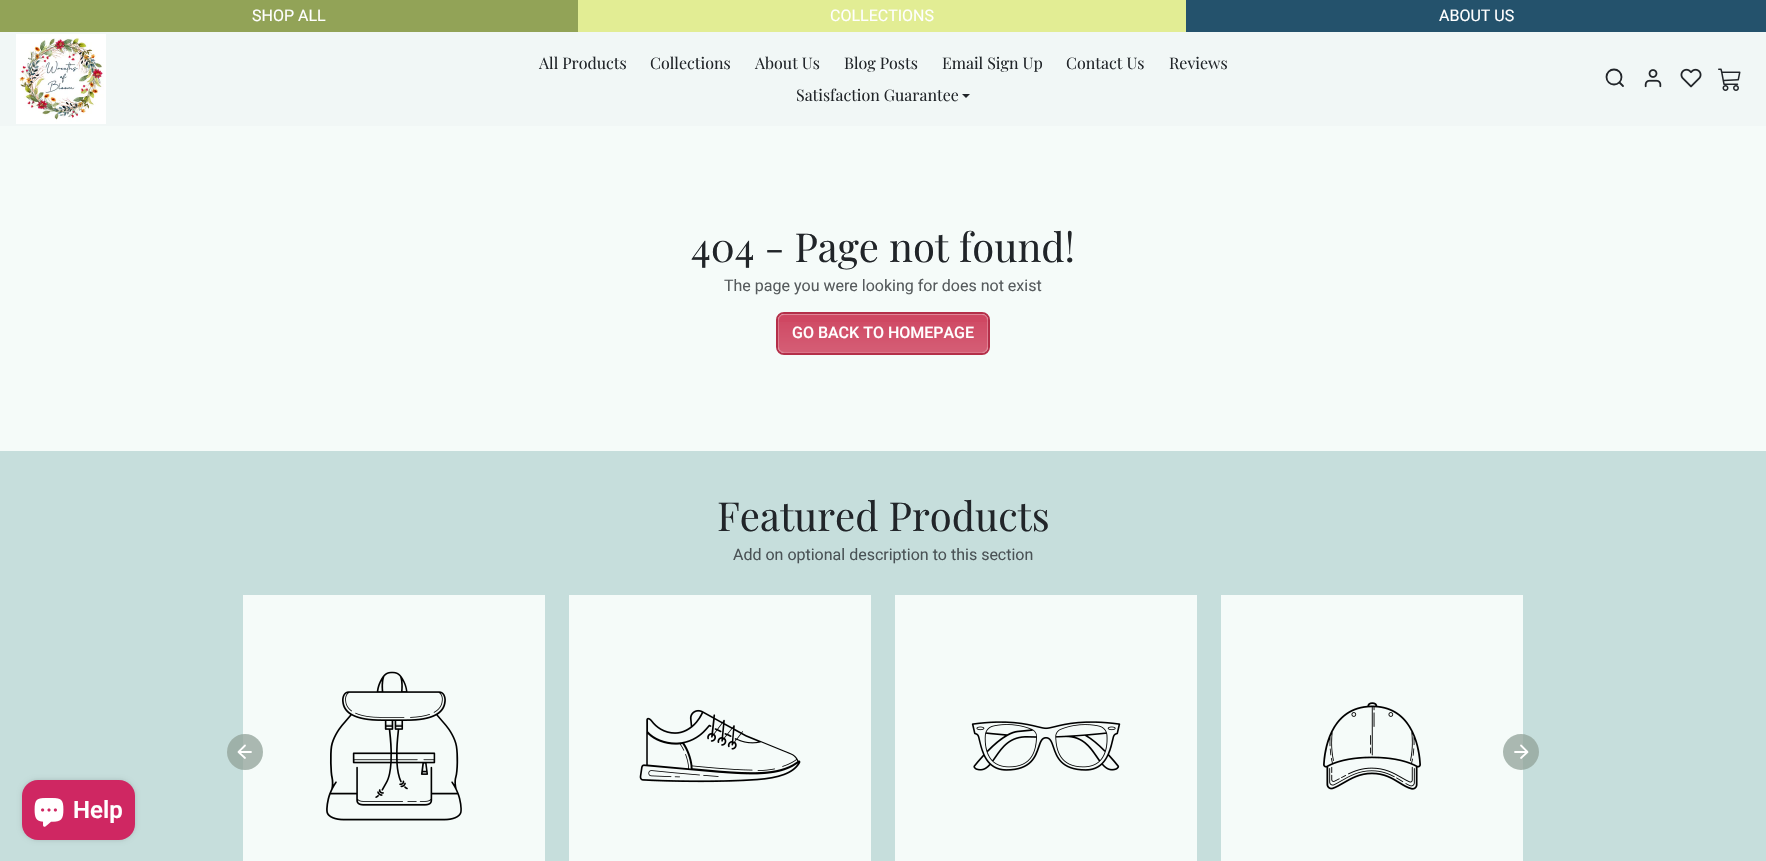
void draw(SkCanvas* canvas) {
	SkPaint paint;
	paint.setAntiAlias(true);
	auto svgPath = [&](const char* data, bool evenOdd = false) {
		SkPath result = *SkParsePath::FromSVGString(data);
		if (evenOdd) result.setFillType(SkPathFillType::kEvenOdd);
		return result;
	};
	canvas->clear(0xffc6dedc);
	paint.setColor(0xff92a357);
	canvas->drawRect(SkRect::MakeXYWH(0, 0, 578, 32), paint);
	SkFont f1(fontMgr->matchFamilyStyle("Roboto", SkFontStyle::Normal()), 16);
	f1.setSubpixel(true);
	paint.setColor(0xffffffff);
	canvas->drawString("SHOP ALL", 252, 21, f1, paint);
	paint.setColor(0xffe2ed94);
	canvas->drawRect(SkRect::MakeXYWH(578, 0, 608, 32), paint);
	paint.setColor(0xffffffff);
	canvas->drawString("COLLECTIONS", 830, 21, f1, paint);
	paint.setColor(0xff24526c);
	canvas->drawRect(SkRect::MakeXYWH(1186, 0, 580, 32), paint);
	paint.setColor(0xffffffff);
	canvas->drawString("ABOUT US", 1439, 21, f1, paint);
	paint.setColor(0xfff1f7f6);
	canvas->drawRect(SkRect::MakeXYWH(0, 32, 1766, 94), paint);
	canvas->drawImageRect(SkImages::DeferredFromEncodedData(SkData::MakeFromFileName("img1.png")), SkRect::MakeXYWH(16, 34, 90, 90), SkSamplingOptions());
	SkFont f2(fontMgr->matchFamilyStyle("Playfair Display", SkFontStyle::Normal()), 16);
	f2.setSubpixel(true);
	paint.setColor(0xff212529);
	canvas->drawString("All Products", 539, 69, f2, paint);
	canvas->drawString("Collections", 650, 69, f2, paint);
	canvas->drawString("About Us", 755, 69, f2, paint);
	canvas->drawString("Blog Posts", 844, 69, f2, paint);
	canvas->drawString("Email Sign Up", 942, 69, f2, paint);
	canvas->drawString("Contact Us", 1066, 69, f2, paint);
	canvas->drawString("Reviews", 1169, 69, f2, paint);
	canvas->drawString("Satisfaction Guarantee", 796, 101, f2, paint);
	canvas->drawPath(svgPath("M962 94H970L966 98Z"), paint);
	paint.setStroke(true);
	paint.setStrokeWidth(1.8);
	canvas->drawCircle(1614, 77, 7.5, paint);
	paint.setStrokeCap(SkPaint::kRound_Cap);
	paint.setStrokeJoin(SkPaint::kRound_Join);
	canvas->drawPath(svgPath("M1623 86L1619.5 82.5"), paint);
	canvas->drawImageRect(SkImages::DeferredFromEncodedData(SkData::MakeFromFileName("img2.png")), SkRect::MakeXYWH(1644, 69, 18, 19), SkSamplingOptions());
	canvas->drawImageRect(SkImages::DeferredFromEncodedData(SkData::MakeFromFileName("img3.png")), SkRect::MakeXYWH(1680, 68, 22, 20), SkSamplingOptions());
	canvas->drawImageRect(SkImages::DeferredFromEncodedData(SkData::MakeFromFileName("img4.png")), SkRect::MakeXYWH(1718, 68, 23, 23), SkSamplingOptions());
	paint.setStroke(false);
	paint.setColor(0xfff5fbf9);
	canvas->drawRect(SkRect::MakeXYWH(0, 126, 1766, 325), paint);
	SkFont f3(fontMgr->matchFamilyStyle("Playfair Display", SkFontStyle::Normal()), 40);
	f3.setSubpixel(true);
	paint.setColor(0xff212529);
	canvas->drawString("404 - Page not found!", 691, 262, f3, paint);
	paint.setColor(0xff565b5d);
	canvas->drawString("The page you were looking for does not exist", 724, 291, f1, paint);
	paint.setStroke(true);
	paint.setStrokeWidth(2);
	paint.setStrokeCap(SkPaint::kButt_Cap);
	paint.setStrokeJoin(SkPaint::kMiter_Join);
	paint.setColor(0xffb42f49);
	canvas->drawRoundRect(SkRect::MakeXYWH(777, 313, 212, 41), 7, 7, paint);
	paint.setStroke(false);
	paint.setColor(0xffcf4762);
	canvas->drawRoundRect(SkRect::MakeXYWH(778, 314, 210, 39), 6, 6, paint);
	canvas->save();
	canvas->clipPath(svgPath("M784 314H982C985.5 314 988 316.5 988 320V347C988 350.5 985.5 353 982 353H784C780.5 353 778 350.5 778 347V320C778 316.5 780.5 314 784 314Z"), true);
	{
		const SkColor colors[] = {0x00ffffff, 0x1fffffff};
		const float stops[] = {0, 1};
		const SkPoint ends[] = {{883, 278}, {883, 315}};
		paint.setShader(SkGradientShader::MakeLinear(ends, colors, stops, 2, SkTileMode::kClamp));
		paint.setAlpha(255);
	}
	canvas->drawRect(SkRect::MakeXYWH(778, 314, 210, 1), paint);
	{
		const SkColor colors[] = {0x00ffffff, 0x1fffffff};
		const float stops[] = {0, 1};
		const SkPoint ends[] = {{883, 315}, {883, 352}};
		paint.setShader(SkGradientShader::MakeLinear(ends, colors, stops, 2, SkTileMode::kClamp));
		paint.setAlpha(255);
	}
	canvas->drawRect(SkRect::MakeXYWH(778, 322, 210, 30), paint);
	canvas->restore();
	paint.setStroke(true);
	paint.setStrokeWidth(1);
	paint.setShader(nullptr);
	paint.setColor(0x40ffffff);
	canvas->drawRoundRect(SkRect::MakeXYWH(778.5, 314.5, 209, 38), 5.5, 5.5, paint);
	SkFont f4(fontMgr->matchFamilyStyle("Roboto", SkFontStyle(500, SkFontStyle::kNormal_Width, SkFontStyle::kUpright_Slant)), 16);
	f4.setSubpixel(true);
	paint.setStroke(false);
	paint.setColor(0xffffffff);
	canvas->drawString("GO BACK TO HOMEPAGE", 792, 338, f4, paint);
	paint.setColor(0xff212529);
	canvas->drawString("Featured Products", 717, 531, f3, paint);
	paint.setColor(0xff4a5356);
	canvas->drawString("Add on optional description to this section", 733, 560, f1, paint);
	paint.setColor(0xfff5fbf9);
	canvas->drawRect(SkRect::MakeXYWH(243, 595, 302, 266), paint);
	canvas->drawImageRect(SkImages::DeferredFromEncodedData(SkData::MakeFromFileName("img5.png")), SkRect::MakeXYWH(326, 671, 136, 150), SkSamplingOptions());
	canvas->drawRect(SkRect::MakeXYWH(569, 595, 302, 266), paint);
	canvas->drawImageRect(SkImages::DeferredFromEncodedData(SkData::MakeFromFileName("img6.png")), SkRect::MakeXYWH(639, 709, 162, 74), SkSamplingOptions());
	canvas->drawRect(SkRect::MakeXYWH(895, 595, 302, 266), paint);
	canvas->drawImageRect(SkImages::DeferredFromEncodedData(SkData::MakeFromFileName("img7.png")), SkRect::MakeXYWH(971, 721, 150, 50), SkSamplingOptions());
	canvas->drawRect(SkRect::MakeXYWH(1221, 595, 302, 266), paint);
	canvas->drawImageRect(SkImages::DeferredFromEncodedData(SkData::MakeFromFileName("img8.png")), SkRect::MakeXYWH(1323, 702, 98, 88), SkSamplingOptions());
	paint.setColor(0xbf90a298);
	canvas->drawCircle(245, 752, 18, paint);
	paint.setStroke(true);
	paint.setStrokeWidth(1.8);
	paint.setStrokeCap(SkPaint::kRound_Cap);
	paint.setStrokeJoin(SkPaint::kRound_Join);
	paint.setColor(0xffffffff);
	canvas->drawPath(svgPath("M251 752H239.5M245 745.5L238.5 752L245 758"), paint);
	paint.setStroke(false);
	paint.setColor(0xbf90a298);
	canvas->drawPath(svgPath("M1521 770C1511 770 1503 761.5 1503 752C1503 742 1511 734 1521 734C1531 734 1539 742 1539 752C1539 761.5 1531 770 1521 770Z"), paint);
	paint.setStroke(true);
	paint.setColor(0xffffffff);
	canvas->drawPath(svgPath("M1515 752H1526.5M1521 758L1527.5 752L1521 745.5"), paint);
	paint.setStroke(false);
	paint.setColor(0x26000000);
	paint.setMaskFilter(SkMaskFilter::MakeBlur(kNormal_SkBlurStyle, 2.5));
	canvas->drawRoundRect(SkRect::MakeXYWH(22, 780, 113, 60), 16, 16, paint);
	paint.setMaskFilter(nullptr);
	paint.setColor(0xffcf2762);
	canvas->drawRoundRect(SkRect::MakeXYWH(22, 780, 113, 60), 16, 16, paint);
	canvas->drawImageRect(SkImages::DeferredFromEncodedData(SkData::MakeFromFileName("img9.png")), SkRect::MakeXYWH(34, 798, 30, 29), SkSamplingOptions());
	SkFont f5(fontMgr->matchFamilyStyle("Roboto", SkFontStyle(600, SkFontStyle::kNormal_Width, SkFontStyle::kUpright_Slant)), 24);
	f5.setSubpixel(true);
	paint.setColor(0xffffffff);
	canvas->drawString("Help", 73, 818, f5, paint);
}
